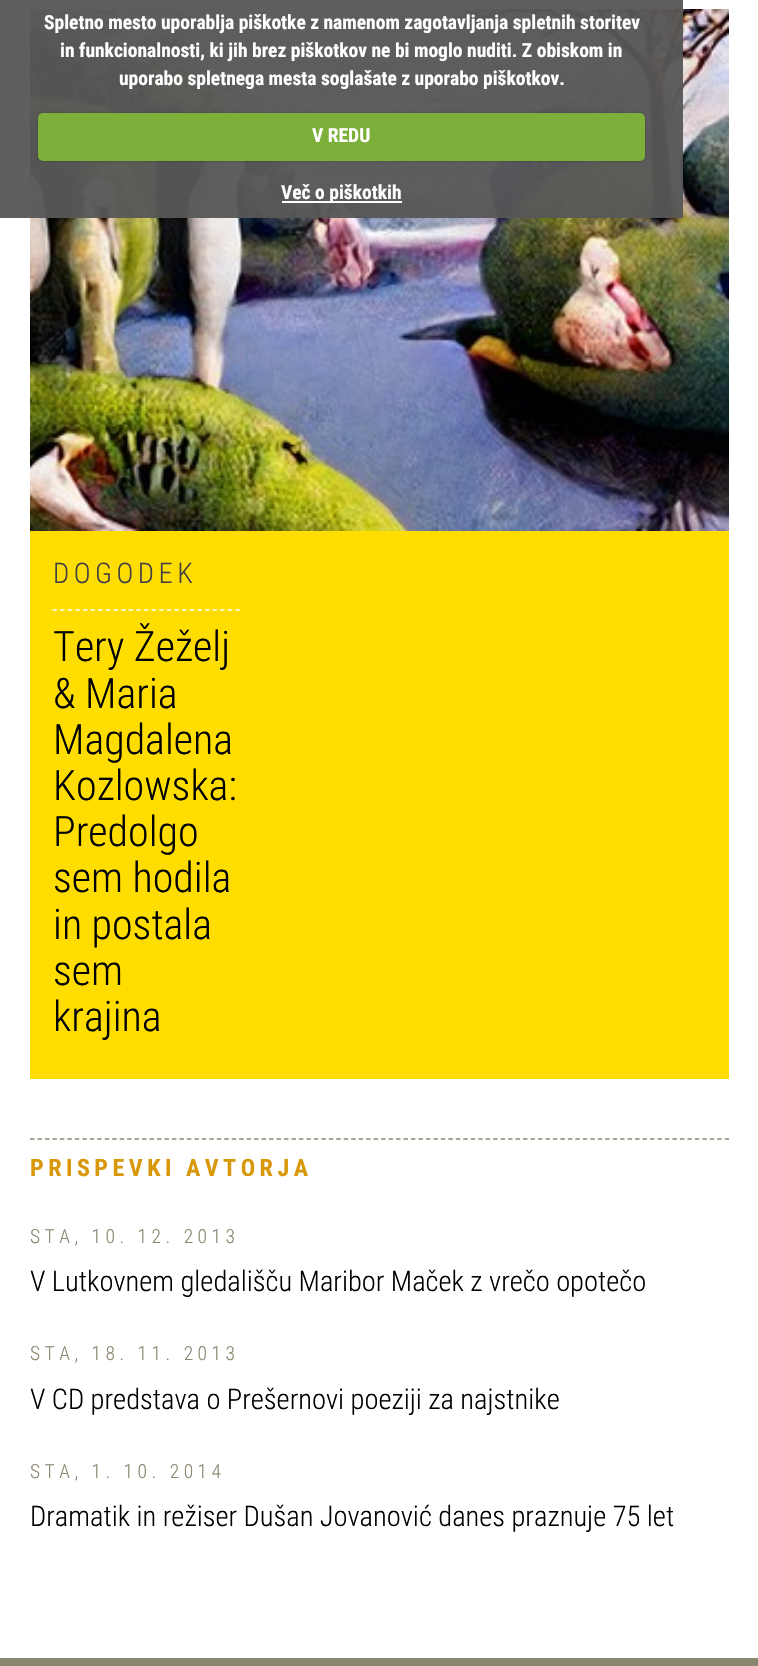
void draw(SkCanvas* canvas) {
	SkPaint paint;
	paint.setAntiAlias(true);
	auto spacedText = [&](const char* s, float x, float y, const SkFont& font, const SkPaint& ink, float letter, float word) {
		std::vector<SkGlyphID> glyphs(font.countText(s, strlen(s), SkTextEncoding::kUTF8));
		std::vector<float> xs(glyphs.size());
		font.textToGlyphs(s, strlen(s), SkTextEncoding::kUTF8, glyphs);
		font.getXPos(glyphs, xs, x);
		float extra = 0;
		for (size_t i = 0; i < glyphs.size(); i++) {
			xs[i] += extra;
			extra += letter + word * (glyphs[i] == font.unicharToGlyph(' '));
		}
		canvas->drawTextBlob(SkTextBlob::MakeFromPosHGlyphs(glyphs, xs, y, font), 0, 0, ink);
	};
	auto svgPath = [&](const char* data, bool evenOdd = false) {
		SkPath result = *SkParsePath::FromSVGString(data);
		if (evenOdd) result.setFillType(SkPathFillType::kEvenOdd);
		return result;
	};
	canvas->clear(0xffffffff);
	canvas->drawImageRect(SkImages::DeferredFromEncodedData(SkData::MakeFromFileName("img1.png")), SkRect::MakeXYWH(30, 9, 699, 522), SkSamplingOptions());
	paint.setColor(0xf2565656);
	canvas->drawRect(SkRect::MakeXYWH(0, 0, 683, 218), paint);
	SkFont f1(fontMgr->matchFamilyStyle("Roboto Condensed", SkFontStyle::Bold()), 19.5);
	f1.setSubpixel(true);
	paint.setColor(0xffffffff);
	canvas->drawString("Spletno mesto uporablja piškotke z namenom zagotavljanja spletnih storitev", 44, 29, f1, paint);
	canvas->drawString("in funkcionalnosti, ki jih brez piškotkov ne bi moglo nuditi. Z obiskom in", 60, 57, f1, paint);
	canvas->drawString("uporabo spletnega mesta soglašate z uporabo piškotkov.", 119, 85, f1, paint);
	paint.setColor(0x40000000);
	paint.setMaskFilter(SkMaskFilter::MakeBlur(kNormal_SkBlurStyle, 1.5));
	canvas->drawRoundRect(SkRect::MakeXYWH(38, 113, 607, 48), 5, 5, paint);
	paint.setMaskFilter(nullptr);
	paint.setColor(0xff7daf3b);
	canvas->drawRoundRect(SkRect::MakeXYWH(38, 113, 607, 48), 5, 5, paint);
	paint.setColor(0xffffffff);
	canvas->drawString("V REDU", 312, 142, f1, paint);
	canvas->drawRect(SkRect::MakeXYWH(282, 201, 120, 2), paint);
	canvas->drawString("Več o piškotkih", 281, 199, f1, paint);
	paint.setColor(0xffffdd00);
	canvas->drawRect(SkRect::MakeXYWH(30, 531, 699, 548), paint);
	paint.setStroke(true);
	paint.setStrokeWidth(1.5);
	paint.setColor(0xffffffff);
	paint.setPathEffect(SkDashPathEffect::Make({{4.5f, 3.12f}}, 0));
	canvas->drawPath(svgPath("M52.5 610H240"), paint);
	paint.setPathEffect(nullptr);
	SkFont f2(fontMgr->matchFamilyStyle("Roboto Condensed", SkFontStyle(300, SkFontStyle::kNormal_Width, SkFontStyle::kUpright_Slant)), 28.5);
	f2.setSubpixel(true);
	paint.setStroke(false);
	paint.setColor(0xff414042);
	spacedText("DOGODEK", 53, 583, f2, paint, 4.5, 0);
	SkFont f3(fontMgr->matchFamilyStyle("Roboto Condensed", SkFontStyle(300, SkFontStyle::kNormal_Width, SkFontStyle::kUpright_Slant)), 42);
	f3.setSubpixel(true);
	paint.setColor(0xff000000);
	canvas->drawString("Tery Žeželj", 53, 661, f3, paint);
	canvas->drawString("& Maria", 53, 708, f3, paint);
	canvas->drawString("Magdalena", 53, 754, f3, paint);
	canvas->drawString("Kozlowska:", 53, 800, f3, paint);
	canvas->drawString("Predolgo", 53, 846, f3, paint);
	canvas->drawString("sem hodila", 53, 892, f3, paint);
	canvas->drawString("in postala", 53, 939, f3, paint);
	canvas->drawString("sem", 53, 985, f3, paint);
	canvas->drawString("krajina", 53, 1031, f3, paint);
	paint.setStroke(true);
	paint.setColor(0xff8b8670);
	paint.setPathEffect(SkDashPathEffect::Make({{4.5f, 2.97f}}, 0));
	canvas->drawPath(svgPath("M30 1139H729"), paint);
	paint.setPathEffect(nullptr);
	SkFont f4(fontMgr->matchFamilyStyle("Roboto Condensed", SkFontStyle::Bold()), 24);
	f4.setSubpixel(true);
	paint.setStroke(false);
	paint.setColor(0xffd89809);
	spacedText("PRISPEVKI AVTORJA", 30, 1176, f4, paint, 4.5, 0);
	SkFont f5(fontMgr->matchFamilyStyle("Roboto Condensed", SkFontStyle(300, SkFontStyle::kNormal_Width, SkFontStyle::kUpright_Slant)), 19.5);
	f5.setSubpixel(true);
	paint.setColor(0xff8b8670);
	spacedText("STA, 10. 12. 2013", 30, 1243, f5, paint, 4.5, 0);
	paint.setColor(0xff000000);
	canvas->drawString("V Lutkovnem gledališču Maribor Maček z vrečo opotečo", 30, 1291, f2, paint);
	paint.setColor(0xff8b8670);
	spacedText("STA, 18. 11. 2013", 30, 1360, f5, paint, 4.5, 0);
	paint.setColor(0xff000000);
	canvas->drawString("V CD predstava o Prešernovi poeziji za najstnike", 30, 1409, f2, paint);
	paint.setColor(0xff8b8670);
	spacedText("STA, 1. 10. 2014", 30, 1478, f5, paint, 4.5, 0);
	paint.setColor(0xff000000);
	canvas->drawString("Dramatik in režiser Dušan Jovanović danes praznuje 75 let", 30, 1526, f2, paint);
	paint.setColor(0xff8b8670);
	canvas->drawRect(SkRect::MakeXYWH(0, 1658, 758, 8), paint);
}
